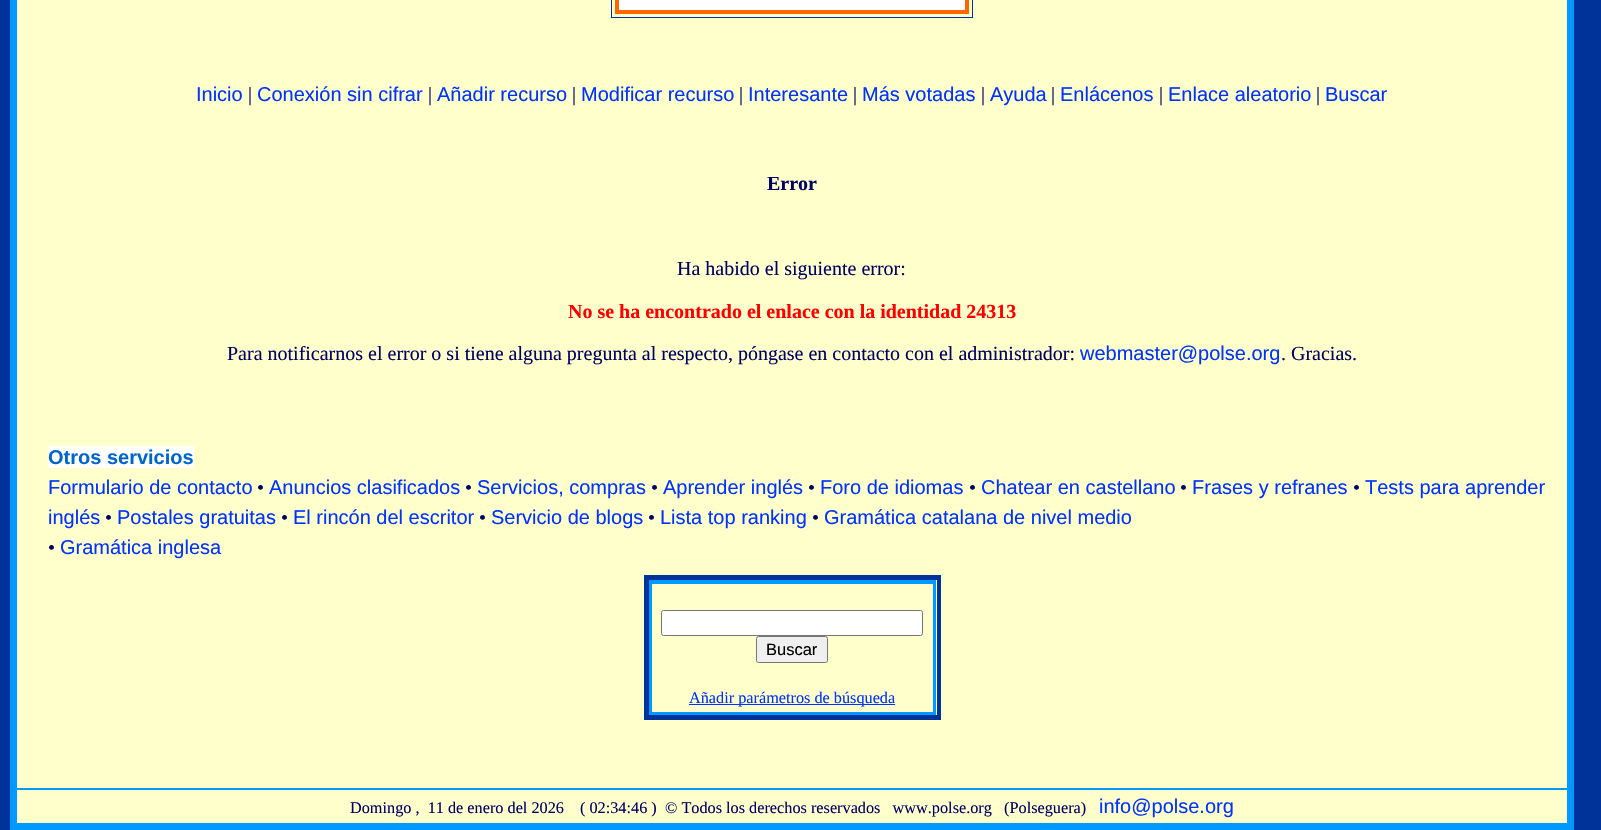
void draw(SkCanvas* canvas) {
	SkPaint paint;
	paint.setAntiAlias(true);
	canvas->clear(0xff003399);
	paint.setColor(0xff0099ff);
	canvas->drawRect(SkRect::MakeXYWH(10, 0, 1564, 830), paint);
	paint.setColor(0xffffffcc);
	canvas->drawRect(SkRect::MakeXYWH(17, 0, 1550, 823), paint);
	paint.setStroke(true);
	paint.setStrokeWidth(1);
	paint.setColor(0xff0099ff);
	canvas->drawRect(SkRect::MakeXYWH(16.5, -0.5, 1551, 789), paint);
	paint.setColor(0xff003399);
	canvas->drawRect(SkRect::MakeXYWH(611.5, -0.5, 361, 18), paint);
	paint.setStroke(false);
	paint.setColor(0xffffffff);
	canvas->drawRect(SkRect::MakeXYWH(619, 0, 346, 10), paint);
	paint.setStroke(true);
	paint.setStrokeWidth(3);
	paint.setColor(0xffff6600);
	canvas->drawRect(SkRect::MakeXYWH(616.5, -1.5, 351, 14), paint);
	paint.setStrokeWidth(1);
	canvas->drawRect(SkRect::MakeXYWH(618.5, -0.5, 347, 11), paint);
	SkFont f1(fontMgr->matchFamilyStyle("Liberation Sans", SkFontStyle::Normal()), 20);
	f1.setSubpixel(true);
	paint.setStroke(false);
	paint.setColor(0xff0033ff);
	canvas->drawString("Inicio", 196, 101, f1, paint);
	SkFont f2(fontMgr->matchFamilyStyle("Liberation Serif", SkFontStyle::Normal()), 20);
	f2.setSubpixel(true);
	paint.setColor(0xff000066);
	canvas->drawString("|", 248, 101, f2, paint);
	paint.setColor(0xff0033ff);
	canvas->drawString("Conexión sin cifrar", 257, 101, f1, paint);
	paint.setColor(0xff000066);
	canvas->drawString("|", 428, 101, f2, paint);
	paint.setColor(0xff0033ff);
	canvas->drawString("Añadir recurso", 437, 101, f1, paint);
	paint.setColor(0xff000066);
	canvas->drawString("|", 572, 101, f2, paint);
	paint.setColor(0xff0033ff);
	canvas->drawString("Modificar recurso", 581, 101, f1, paint);
	paint.setColor(0xff000066);
	canvas->drawString("|", 739, 101, f2, paint);
	paint.setColor(0xff0033ff);
	canvas->drawString("Interesante", 748, 101, f1, paint);
	paint.setColor(0xff000066);
	canvas->drawString("|", 853, 101, f2, paint);
	paint.setColor(0xff0033ff);
	canvas->drawString("Más votadas", 862, 101, f1, paint);
	paint.setColor(0xff000066);
	canvas->drawString("|", 981, 101, f2, paint);
	paint.setColor(0xff0033ff);
	canvas->drawString("Ayuda", 990, 101, f1, paint);
	paint.setColor(0xff000066);
	canvas->drawString("|", 1051, 101, f2, paint);
	paint.setColor(0xff0033ff);
	canvas->drawString("Enlácenos", 1060, 101, f1, paint);
	paint.setColor(0xff000066);
	canvas->drawString("|", 1159, 101, f2, paint);
	paint.setColor(0xff0033ff);
	canvas->drawString("Enlace aleatorio", 1168, 101, f1, paint);
	paint.setColor(0xff000066);
	canvas->drawString("|", 1316, 101, f2, paint);
	paint.setColor(0xff0033ff);
	canvas->drawString("Buscar", 1325, 101, f1, paint);
	SkFont f3(fontMgr->matchFamilyStyle("Liberation Serif", SkFontStyle::Bold()), 20);
	f3.setSubpixel(true);
	paint.setColor(0xff000066);
	canvas->drawString("Error", 767, 190, f3, paint);
	canvas->drawString("Ha habido el siguiente error:", 677, 275, f2, paint);
	paint.setColor(0xffff0000);
	canvas->drawString("No se ha encontrado el enlace con la identidad 24313", 568, 318, f3, paint);
	paint.setColor(0xff000066);
	canvas->drawString("Para notificarnos el error o si tiene alguna pregunta al respecto, póngase en contacto con el administrador:", 227, 360, f2, paint);
	paint.setColor(0xff0033ff);
	canvas->drawString("webmaster@polse.org", 1080, 360, f1, paint);
	paint.setColor(0xff000066);
	canvas->drawString(". Gracias.", 1281, 360, f2, paint);
	paint.setColor(0xffffffff);
	canvas->drawRect(SkRect::MakeXYWH(48, 446, 146, 22), paint);
	SkFont f4(fontMgr->matchFamilyStyle("Liberation Sans", SkFontStyle::Bold()), 20);
	f4.setSubpixel(true);
	paint.setColor(0xff0066cc);
	canvas->drawString("Otros servicios", 48, 464, f4, paint);
	paint.setColor(0xff0033ff);
	canvas->drawString("Formulario de contacto", 48, 494, f1, paint);
	paint.setColor(0xff000066);
	canvas->drawString("•", 257, 494, f2, paint);
	paint.setColor(0xff0033ff);
	canvas->drawString("Anuncios clasificados", 269, 494, f1, paint);
	paint.setColor(0xff000066);
	canvas->drawString("•", 465, 494, f2, paint);
	paint.setColor(0xff0033ff);
	canvas->drawString("Servicios, compras", 477, 494, f1, paint);
	paint.setColor(0xff000066);
	canvas->drawString("•", 651, 494, f2, paint);
	paint.setColor(0xff0033ff);
	canvas->drawString("Aprender inglés", 663, 494, f1, paint);
	paint.setColor(0xff000066);
	canvas->drawString("•", 808, 494, f2, paint);
	paint.setColor(0xff0033ff);
	canvas->drawString("Foro de idiomas", 820, 494, f1, paint);
	paint.setColor(0xff000066);
	canvas->drawString("•", 969, 494, f2, paint);
	paint.setColor(0xff0033ff);
	canvas->drawString("Chatear en castellano", 981, 494, f1, paint);
	paint.setColor(0xff000066);
	canvas->drawString("•", 1180, 494, f2, paint);
	paint.setColor(0xff0033ff);
	canvas->drawString("Frases y refranes", 1192, 494, f1, paint);
	paint.setColor(0xff000066);
	canvas->drawString("•", 1353, 494, f2, paint);
	paint.setColor(0xff0033ff);
	canvas->drawString("Tests para aprender", 1365, 494, f1, paint);
	canvas->drawString("inglés", 48, 524, f1, paint);
	paint.setColor(0xff000066);
	canvas->drawString("•", 105, 524, f2, paint);
	paint.setColor(0xff0033ff);
	canvas->drawString("Postales gratuitas", 117, 524, f1, paint);
	paint.setColor(0xff000066);
	canvas->drawString("•", 281, 524, f2, paint);
	paint.setColor(0xff0033ff);
	canvas->drawString("El rincón del escritor", 293, 524, f1, paint);
	paint.setColor(0xff000066);
	canvas->drawString("•", 479, 524, f2, paint);
	paint.setColor(0xff0033ff);
	canvas->drawString("Servicio de blogs", 491, 524, f1, paint);
	paint.setColor(0xff000066);
	canvas->drawString("•", 648, 524, f2, paint);
	paint.setColor(0xff0033ff);
	canvas->drawString("Lista top ranking", 660, 524, f1, paint);
	paint.setColor(0xff000066);
	canvas->drawString("•", 812, 524, f2, paint);
	paint.setColor(0xff0033ff);
	canvas->drawString("Gramática catalana de nivel medio", 824, 524, f1, paint);
	paint.setColor(0xff000066);
	canvas->drawString("•", 48, 554, f2, paint);
	paint.setColor(0xff0033ff);
	canvas->drawString("Gramática inglesa", 60, 554, f1, paint);
	paint.setStroke(true);
	paint.setStrokeWidth(4);
	paint.setColor(0xff003399);
	canvas->drawRect(SkRect::MakeXYWH(646, 577, 293, 141), paint);
	paint.setStrokeWidth(1);
	canvas->drawRect(SkRect::MakeXYWH(648.5, 579.5, 289, 136), paint);
	paint.setStrokeWidth(3);
	paint.setColor(0xff0099ff);
	canvas->drawRect(SkRect::MakeXYWH(650.5, 581.5, 284, 132), paint);
	paint.setStrokeWidth(1);
	canvas->drawRect(SkRect::MakeXYWH(651.5, 583.5, 282, 129), paint);
	paint.setStroke(false);
	paint.setColor(0xffffffff);
	canvas->drawRoundRect(SkRect::MakeXYWH(661.5, 610.5, 261, 25), 2, 2, paint);
	paint.setStroke(true);
	paint.setColor(0xff767676);
	canvas->drawRoundRect(SkRect::MakeXYWH(661.5, 610.5, 261, 25), 2, 2, paint);
	paint.setStroke(false);
	paint.setColor(0xffefefef);
	canvas->drawRoundRect(SkRect::MakeXYWH(756.5, 636.5, 71, 26), 2, 2, paint);
	paint.setStroke(true);
	paint.setColor(0xff767676);
	canvas->drawRoundRect(SkRect::MakeXYWH(756.5, 636.5, 71, 26), 2, 2, paint);
	SkFont f5(fontMgr->matchFamilyStyle("Liberation Sans", SkFontStyle::Normal()), 16.5);
	f5.setSubpixel(true);
	paint.setStroke(false);
	paint.setColor(0xff000000);
	canvas->drawString("Buscar", 766, 655, f5, paint);
	paint.setColor(0xff0033ff);
	canvas->drawRect(SkRect::MakeXYWH(689, 704, 206, 1), paint);
	SkFont f6(fontMgr->matchFamilyStyle("Liberation Serif", SkFontStyle::Normal()), 16.25);
	f6.setSubpixel(true);
	canvas->drawString("Añadir parámetros de búsqueda", 689, 703, f6, paint);
	paint.setStroke(true);
	paint.setColor(0xff0099ff);
	canvas->drawRect(SkRect::MakeXYWH(16.5, 789.5, 1551, 34), paint);
	paint.setStroke(false);
	paint.setColor(0xff000066);
	canvas->drawString("Domingo ,  11 de enero del 2026", 350, 813, f6, paint);
	canvas->drawString("( 02:34:46 )", 580, 813, f6, paint);
	canvas->drawString("© Todos los derechos reservados   www.polse.org   (Polseguera)", 665, 813, f6, paint);
	paint.setColor(0xff0033ff);
	canvas->drawString("info@polse.org", 1099, 813, f1, paint);
}
